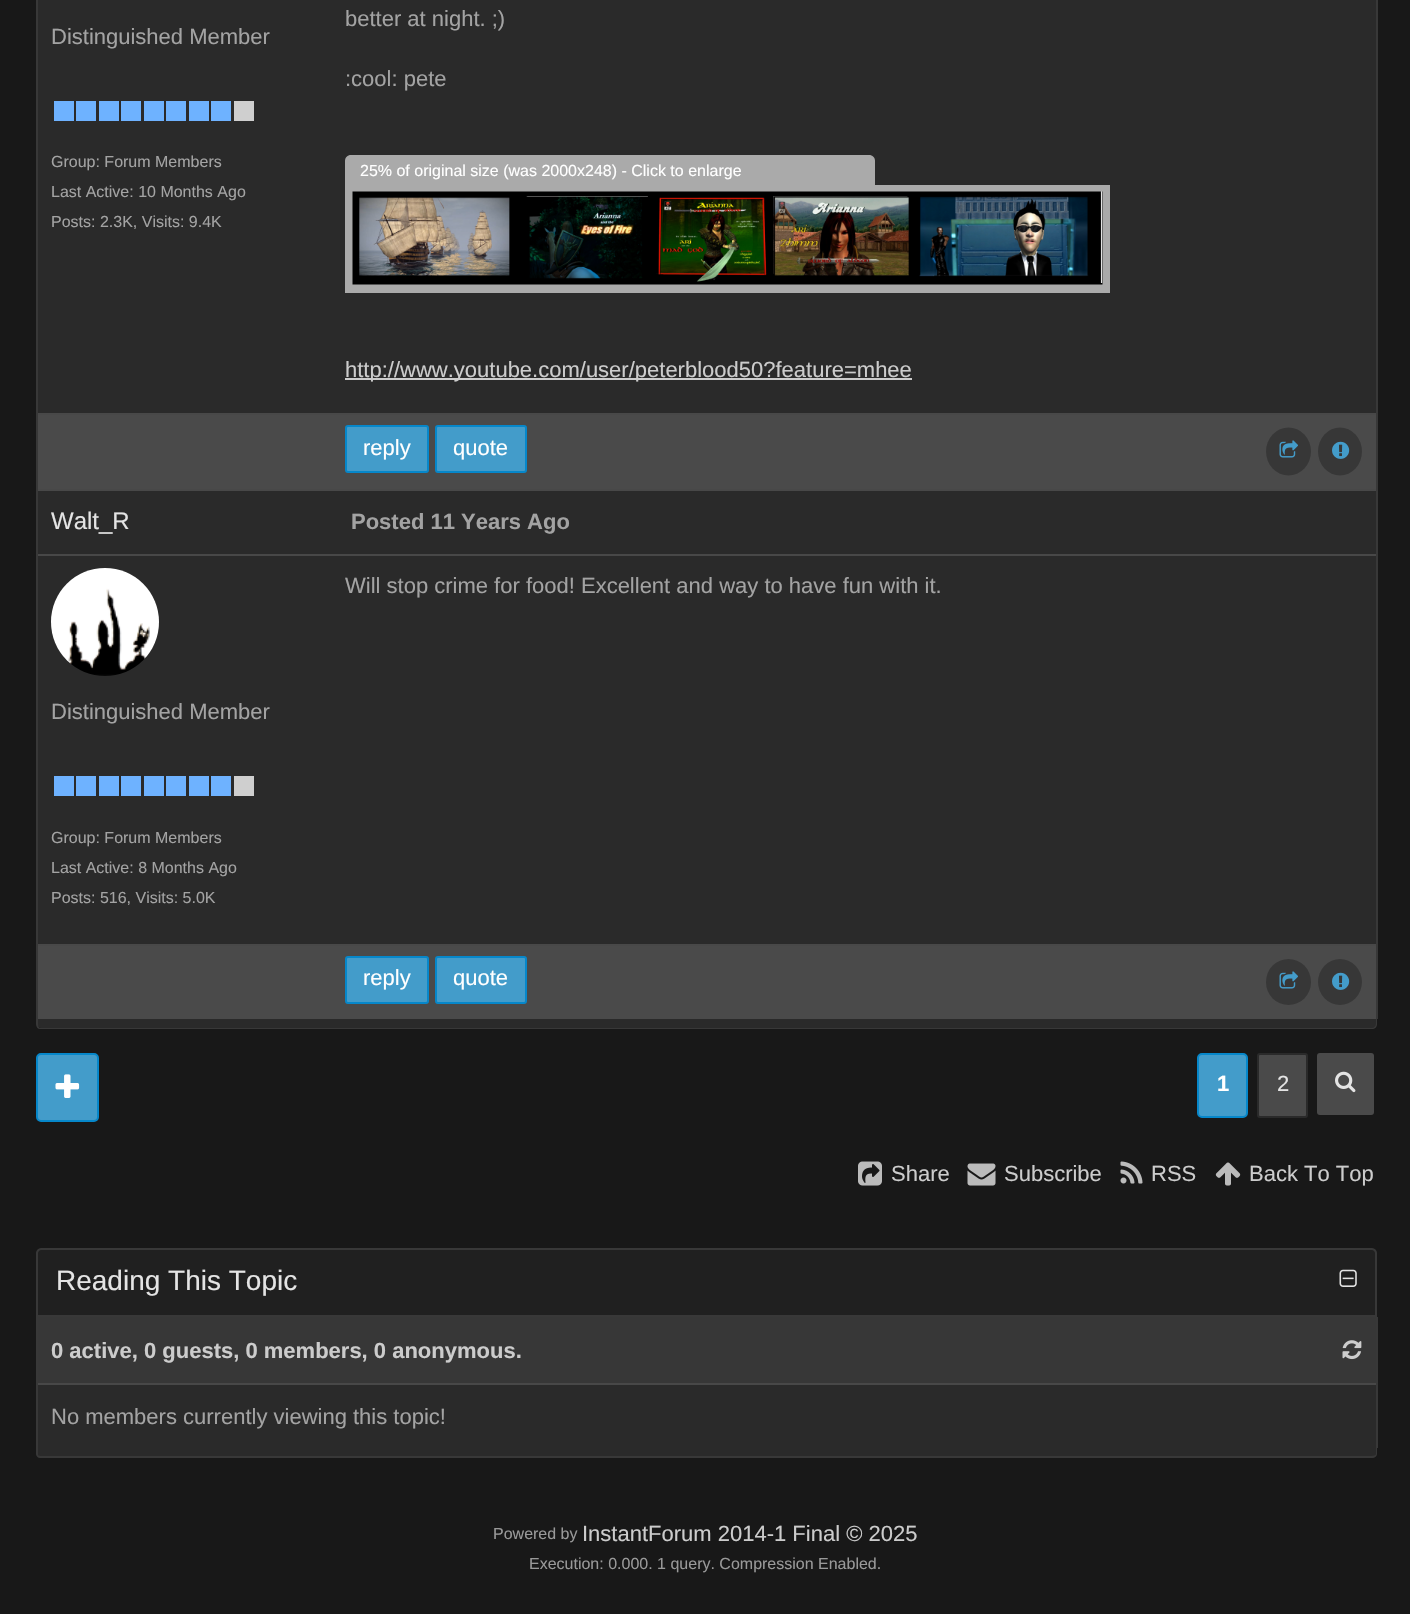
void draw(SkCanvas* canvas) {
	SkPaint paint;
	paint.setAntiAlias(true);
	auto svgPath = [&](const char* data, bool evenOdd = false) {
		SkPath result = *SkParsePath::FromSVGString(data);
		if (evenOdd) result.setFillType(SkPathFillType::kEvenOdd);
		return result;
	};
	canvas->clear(0xff181818);
	paint.setColor(0xff383838);
	canvas->drawRect(SkRect::MakeXYWH(1376, 0, 2, 1019), paint);
	canvas->drawRect(SkRect::MakeXYWH(36, 0, 2, 1019), paint);
	paint.setColor(0xff2a2a2a);
	canvas->drawRect(SkRect::MakeXYWH(38, 0, 1338, 413), paint);
	SkFont f1(fontMgr->matchFamilyStyle("Liberation Sans", SkFontStyle::Normal()), 22);
	f1.setSubpixel(true);
	paint.setColor(0xffa3a3a3);
	canvas->drawString("Distinguished Member", 51, 44, f1, paint);
	paint.setColor(0xff6eb2ff);
	canvas->drawRect(SkRect::MakeXYWH(54, 101, 20, 20), paint);
	canvas->drawRect(SkRect::MakeXYWH(76, 101, 20, 20), paint);
	canvas->drawRect(SkRect::MakeXYWH(99, 101, 20, 20), paint);
	canvas->drawRect(SkRect::MakeXYWH(121, 101, 20, 20), paint);
	canvas->drawRect(SkRect::MakeXYWH(144, 101, 20, 20), paint);
	canvas->drawRect(SkRect::MakeXYWH(166, 101, 20, 20), paint);
	canvas->drawRect(SkRect::MakeXYWH(189, 101, 20, 20), paint);
	canvas->drawRect(SkRect::MakeXYWH(211, 101, 20, 20), paint);
	paint.setColor(0xffcfcfcf);
	canvas->drawRect(SkRect::MakeXYWH(234, 101, 20, 20), paint);
	SkFont f2(fontMgr->matchFamilyStyle("Liberation Sans", SkFontStyle::Normal()), 16);
	f2.setSubpixel(true);
	paint.setColor(0xffa3a3a3);
	canvas->drawString("Group: Forum Members", 51, 167, f2, paint);
	canvas->drawString("Last Active: 10 Months Ago", 51, 197, f2, paint);
	canvas->drawString("Posts: 2.3K, Visits: 9.4K", 51, 227, f2, paint);
	canvas->drawString("better at night. ;)", 345, 26, f1, paint);
	canvas->drawString(":cool: pete", 345, 86, f1, paint);
	paint.setColor(0xffaaaaaa);
	canvas->drawPath(svgPath("M351 155H869C872.5 155 875 157.5 875 161V185H345V161C345 157.5 347.5 155 351 155Z"), paint);
	paint.setColor(0xffffffff);
	canvas->drawString("25% of original size (was 2000x248) - Click to enlarge", 360, 176, f2, paint);
	paint.setColor(0xffaaaaaa);
	canvas->drawRect(SkRect::MakeXYWH(345, 185, 765, 108), paint);
	canvas->drawImageRect(SkImages::DeferredFromEncodedData(SkData::MakeFromFileName("img1.png")), SkRect::MakeXYWH(352, 191, 751, 94), SkSamplingOptions());
	paint.setColor(0xffcccccc);
	canvas->drawRect(SkRect::MakeXYWH(345, 378, 567, 2), paint);
	canvas->drawString("http://www.youtube.com/user/peterblood50?feature=mhee", 345, 377, f1, paint);
	paint.setColor(0xff4a4a4a);
	canvas->drawRect(SkRect::MakeXYWH(38, 415, 1338, 74), paint);
	paint.setColor(0xff484848);
	canvas->drawRect(SkRect::MakeXYWH(38, 413, 1338, 2), paint);
	paint.setColor(0xff439cca);
	canvas->drawRoundRect(SkRect::MakeXYWH(346, 426, 82, 46), 2, 2, paint);
	paint.setStroke(true);
	paint.setStrokeWidth(2);
	paint.setColor(0xff0687ca);
	canvas->drawRoundRect(SkRect::MakeXYWH(346, 426, 82, 46), 2, 2, paint);
	paint.setStroke(false);
	paint.setColor(0xffffffff);
	canvas->drawString("reply", 363, 455, f1, paint);
	paint.setColor(0xff439cca);
	canvas->drawRoundRect(SkRect::MakeXYWH(436, 426, 90, 46), 2, 2, paint);
	paint.setStroke(true);
	paint.setColor(0xff0687ca);
	canvas->drawRoundRect(SkRect::MakeXYWH(436, 426, 90, 46), 2, 2, paint);
	paint.setStroke(false);
	paint.setColor(0xffffffff);
	canvas->drawString("quote", 453, 455, f1, paint);
	paint.setColor(0xff373737);
	canvas->drawOval(SkRect::MakeXYWH(1266, 427.5, 45, 48), paint);
	canvas->drawImageRect(SkImages::DeferredFromEncodedData(SkData::MakeFromFileName("img2.png")), SkRect::MakeXYWH(1279, 440, 19, 18), SkSamplingOptions());
	canvas->drawOval(SkRect::MakeXYWH(1318, 427.5, 44, 48), paint);
	canvas->drawImageRect(SkImages::DeferredFromEncodedData(SkData::MakeFromFileName("img3.png")), SkRect::MakeXYWH(1332, 441, 18, 18), SkSamplingOptions());
	paint.setColor(0xff2a2a2a);
	canvas->drawRect(SkRect::MakeXYWH(38, 491, 1338, 63), paint);
	paint.setColor(0xff484848);
	canvas->drawRect(SkRect::MakeXYWH(38, 489, 1338, 2), paint);
	SkFont f3(fontMgr->matchFamilyStyle("Liberation Sans", SkFontStyle::Normal()), 24);
	f3.setSubpixel(true);
	paint.setColor(0xffe4e4e4);
	canvas->drawString("Walt_R", 51, 529, f3, paint);
	SkFont f4(fontMgr->matchFamilyStyle("Liberation Sans", SkFontStyle::Bold()), 22);
	f4.setSubpixel(true);
	paint.setColor(0xffa3a3a3);
	canvas->drawString("Posted 11 Years Ago", 351, 529, f4, paint);
	paint.setColor(0xff2a2a2a);
	canvas->drawRect(SkRect::MakeXYWH(38, 556, 1338, 388), paint);
	paint.setColor(0xffa3a3a3);
	canvas->drawString("Will stop crime for food! Excellent and way to have fun with it.", 345, 593, f1, paint);
	paint.setColor(0xff484848);
	canvas->drawRect(SkRect::MakeXYWH(38, 554, 1338, 2), paint);
	canvas->drawImageRect(SkImages::DeferredFromEncodedData(SkData::MakeFromFileName("img4.png")), SkRect::MakeXYWH(51, 568, 108, 108), SkSamplingOptions());
	paint.setColor(0xffa3a3a3);
	canvas->drawString("Distinguished Member", 51, 719, f1, paint);
	paint.setColor(0xff6eb2ff);
	canvas->drawRect(SkRect::MakeXYWH(54, 776, 20, 20), paint);
	canvas->drawRect(SkRect::MakeXYWH(76, 776, 20, 20), paint);
	canvas->drawRect(SkRect::MakeXYWH(99, 776, 20, 20), paint);
	canvas->drawRect(SkRect::MakeXYWH(121, 776, 20, 20), paint);
	canvas->drawRect(SkRect::MakeXYWH(144, 776, 20, 20), paint);
	canvas->drawRect(SkRect::MakeXYWH(166, 776, 20, 20), paint);
	canvas->drawRect(SkRect::MakeXYWH(189, 776, 20, 20), paint);
	canvas->drawRect(SkRect::MakeXYWH(211, 776, 20, 20), paint);
	paint.setColor(0xffcfcfcf);
	canvas->drawRect(SkRect::MakeXYWH(234, 776, 20, 20), paint);
	paint.setColor(0xffa3a3a3);
	canvas->drawString("Group: Forum Members", 51, 843, f2, paint);
	canvas->drawString("Last Active: 8 Months Ago", 51, 873, f2, paint);
	canvas->drawString("Posts: 516, Visits: 5.0K", 51, 903, f2, paint);
	paint.setColor(0xff4a4a4a);
	canvas->drawRect(SkRect::MakeXYWH(38, 946, 1338, 73), paint);
	paint.setColor(0xff484848);
	canvas->drawRect(SkRect::MakeXYWH(38, 944, 1338, 2), paint);
	paint.setColor(0xff439cca);
	canvas->drawRoundRect(SkRect::MakeXYWH(346, 957, 82, 46), 2, 2, paint);
	paint.setStroke(true);
	paint.setColor(0xff0687ca);
	canvas->drawRoundRect(SkRect::MakeXYWH(346, 957, 82, 46), 2, 2, paint);
	paint.setStroke(false);
	paint.setColor(0xffffffff);
	canvas->drawString("reply", 363, 985, f1, paint);
	paint.setColor(0xff439cca);
	canvas->drawRoundRect(SkRect::MakeXYWH(436, 957, 90, 46), 2, 2, paint);
	paint.setStroke(true);
	paint.setColor(0xff0687ca);
	canvas->drawRoundRect(SkRect::MakeXYWH(436, 957, 90, 46), 2, 2, paint);
	paint.setStroke(false);
	paint.setColor(0xffffffff);
	canvas->drawString("quote", 453, 985, f1, paint);
	paint.setColor(0xff373737);
	canvas->drawRoundRect(SkRect::MakeXYWH(1266, 959, 45, 46), 22.5, 22.5, paint);
	canvas->drawImageRect(SkImages::DeferredFromEncodedData(SkData::MakeFromFileName("img2.png")), SkRect::MakeXYWH(1279, 971, 19, 18), SkSamplingOptions());
	canvas->drawOval(SkRect::MakeXYWH(1318, 959, 44, 46), paint);
	canvas->drawImageRect(SkImages::DeferredFromEncodedData(SkData::MakeFromFileName("img3.png")), SkRect::MakeXYWH(1332, 972, 18, 18), SkSamplingOptions());
	paint.setColor(0xff2a2a2a);
	canvas->drawPath(svgPath("M38 1019H1376V1025C1376 1026.5 1374.5 1028 1373 1028H41C39.5 1028 38 1026.5 38 1025Z"), paint);
	paint.setColor(0xff383838);
	canvas->drawPath(svgPath("M36 1018H1377V1024C1377 1027 1375 1029 1372 1029H40C38 1029 36 1027 36 1024ZM38 1018H1376V1024C1376 1026 1374 1028 1372 1028H40C39 1028 38 1026 38 1024Z", true), paint);
	paint.setColor(0xff439cca);
	canvas->drawRoundRect(SkRect::MakeXYWH(37, 1054, 61, 67), 4, 4, paint);
	paint.setStroke(true);
	paint.setColor(0xff0687ca);
	canvas->drawRoundRect(SkRect::MakeXYWH(37, 1054, 61, 67), 4, 4, paint);
	canvas->drawImageRect(SkImages::DeferredFromEncodedData(SkData::MakeFromFileName("img5.png")), SkRect::MakeXYWH(55, 1074, 25, 24), SkSamplingOptions());
	paint.setStroke(false);
	paint.setColor(0xff439cca);
	canvas->drawRoundRect(SkRect::MakeXYWH(1198, 1054, 49, 63), 4, 4, paint);
	paint.setStroke(true);
	paint.setColor(0xff0687ca);
	canvas->drawRoundRect(SkRect::MakeXYWH(1198, 1054, 49, 63), 4, 4, paint);
	paint.setStroke(false);
	paint.setColor(0xffffffff);
	canvas->drawString("1", 1217, 1091, f4, paint);
	paint.setColor(0xff4a4a4a);
	canvas->drawRoundRect(SkRect::MakeXYWH(1258, 1054, 49, 63), 2, 2, paint);
	paint.setStroke(true);
	paint.setColor(0xff2a2a2a);
	canvas->drawRoundRect(SkRect::MakeXYWH(1258, 1054, 49, 63), 2, 2, paint);
	paint.setStroke(false);
	paint.setColor(0xffe4e4e4);
	canvas->drawString("2", 1277, 1091, f1, paint);
	paint.setColor(0xff4a4a4a);
	canvas->drawRoundRect(SkRect::MakeXYWH(1317, 1053, 57, 62), 3, 3, paint);
	canvas->drawImageRect(SkImages::DeferredFromEncodedData(SkData::MakeFromFileName("img6.png")), SkRect::MakeXYWH(1335, 1071, 21, 22), SkSamplingOptions());
	canvas->drawImageRect(SkImages::DeferredFromEncodedData(SkData::MakeFromFileName("img7.png")), SkRect::MakeXYWH(858, 1161, 24, 25), SkSamplingOptions());
	paint.setColor(0xffcccccc);
	canvas->drawString("Share", 891, 1181, f1, paint);
	canvas->drawImageRect(SkImages::DeferredFromEncodedData(SkData::MakeFromFileName("img8.png")), SkRect::MakeXYWH(967, 1163, 29, 23), SkSamplingOptions());
	canvas->drawString("Subscribe", 1004, 1181, f1, paint);
	canvas->drawImageRect(SkImages::DeferredFromEncodedData(SkData::MakeFromFileName("img9.png")), SkRect::MakeXYWH(1120, 1161, 23, 23), SkSamplingOptions());
	canvas->drawString("RSS", 1151, 1181, f1, paint);
	canvas->drawImageRect(SkImages::DeferredFromEncodedData(SkData::MakeFromFileName("img10.png")), SkRect::MakeXYWH(1215, 1162, 26, 24), SkSamplingOptions());
	canvas->drawString("Back To Top", 1249, 1181, f1, paint);
	paint.setColor(0xff202020);
	canvas->drawPath(svgPath("M41 1249H1372C1374 1249 1376 1251 1376 1253V1316H37V1253C37 1251 39 1249 41 1249Z"), paint);
	paint.setStroke(true);
	paint.setColor(0xff383838);
	canvas->drawPath(svgPath("M41 1249H1372C1374 1249 1376 1251 1376 1253V1316H37V1253C37 1251 39 1249 41 1249Z"), paint);
	SkFont f5(fontMgr->matchFamilyStyle("Liberation Sans", SkFontStyle::Normal()), 28);
	f5.setSubpixel(true);
	paint.setStroke(false);
	paint.setColor(0xffe4e4e4);
	canvas->drawString("Reading This Topic", 56, 1290, f5, paint);
	canvas->drawImageRect(SkImages::DeferredFromEncodedData(SkData::MakeFromFileName("img11.png")), SkRect::MakeXYWH(1339, 1269, 18, 18), SkSamplingOptions());
	paint.setColor(0xff383838);
	canvas->drawRect(SkRect::MakeXYWH(1376, 1317, 2, 131), paint);
	canvas->drawRect(SkRect::MakeXYWH(36, 1317, 2, 131), paint);
	paint.setColor(0xff373737);
	canvas->drawRect(SkRect::MakeXYWH(38, 1317, 1338, 66), paint);
	paint.setColor(0xffcccccc);
	canvas->drawString("0 active, 0 guests, 0 members, 0 anonymous.", 51, 1358, f4, paint);
	canvas->drawImageRect(SkImages::DeferredFromEncodedData(SkData::MakeFromFileName("img12.png")), SkRect::MakeXYWH(1342, 1340, 20, 20), SkSamplingOptions());
	paint.setColor(0xff2a2a2a);
	canvas->drawRect(SkRect::MakeXYWH(38, 1385, 1338, 63), paint);
	paint.setColor(0xff484848);
	canvas->drawRect(SkRect::MakeXYWH(38, 1383, 1338, 2), paint);
	paint.setColor(0xffa3a3a3);
	canvas->drawString("No members currently viewing this topic!", 51, 1424, f1, paint);
	paint.setColor(0xff2a2a2a);
	canvas->drawPath(svgPath("M38 1448H1376V1454C1376 1455.5 1374.5 1457 1373 1457H41C39.5 1457 38 1455.5 38 1454Z"), paint);
	paint.setColor(0xff383838);
	canvas->drawPath(svgPath("M36 1448H1377V1454C1377 1456 1375 1458 1372 1458H40C38 1458 36 1456 36 1454ZM38 1448H1376V1454C1376 1455 1374 1456 1372 1456H40C39 1456 38 1455 38 1454Z", true), paint);
	paint.setColor(0xff999999);
	canvas->drawString("Powered by", 493, 1539, f2, paint);
	paint.setColor(0xffcccccc);
	canvas->drawString("InstantForum 2014-1 Final © 2025", 582, 1541, f1, paint);
	paint.setColor(0xff999999);
	canvas->drawString("Execution: 0.000. 1 query. Compression Enabled.", 529, 1569, f2, paint);
}
